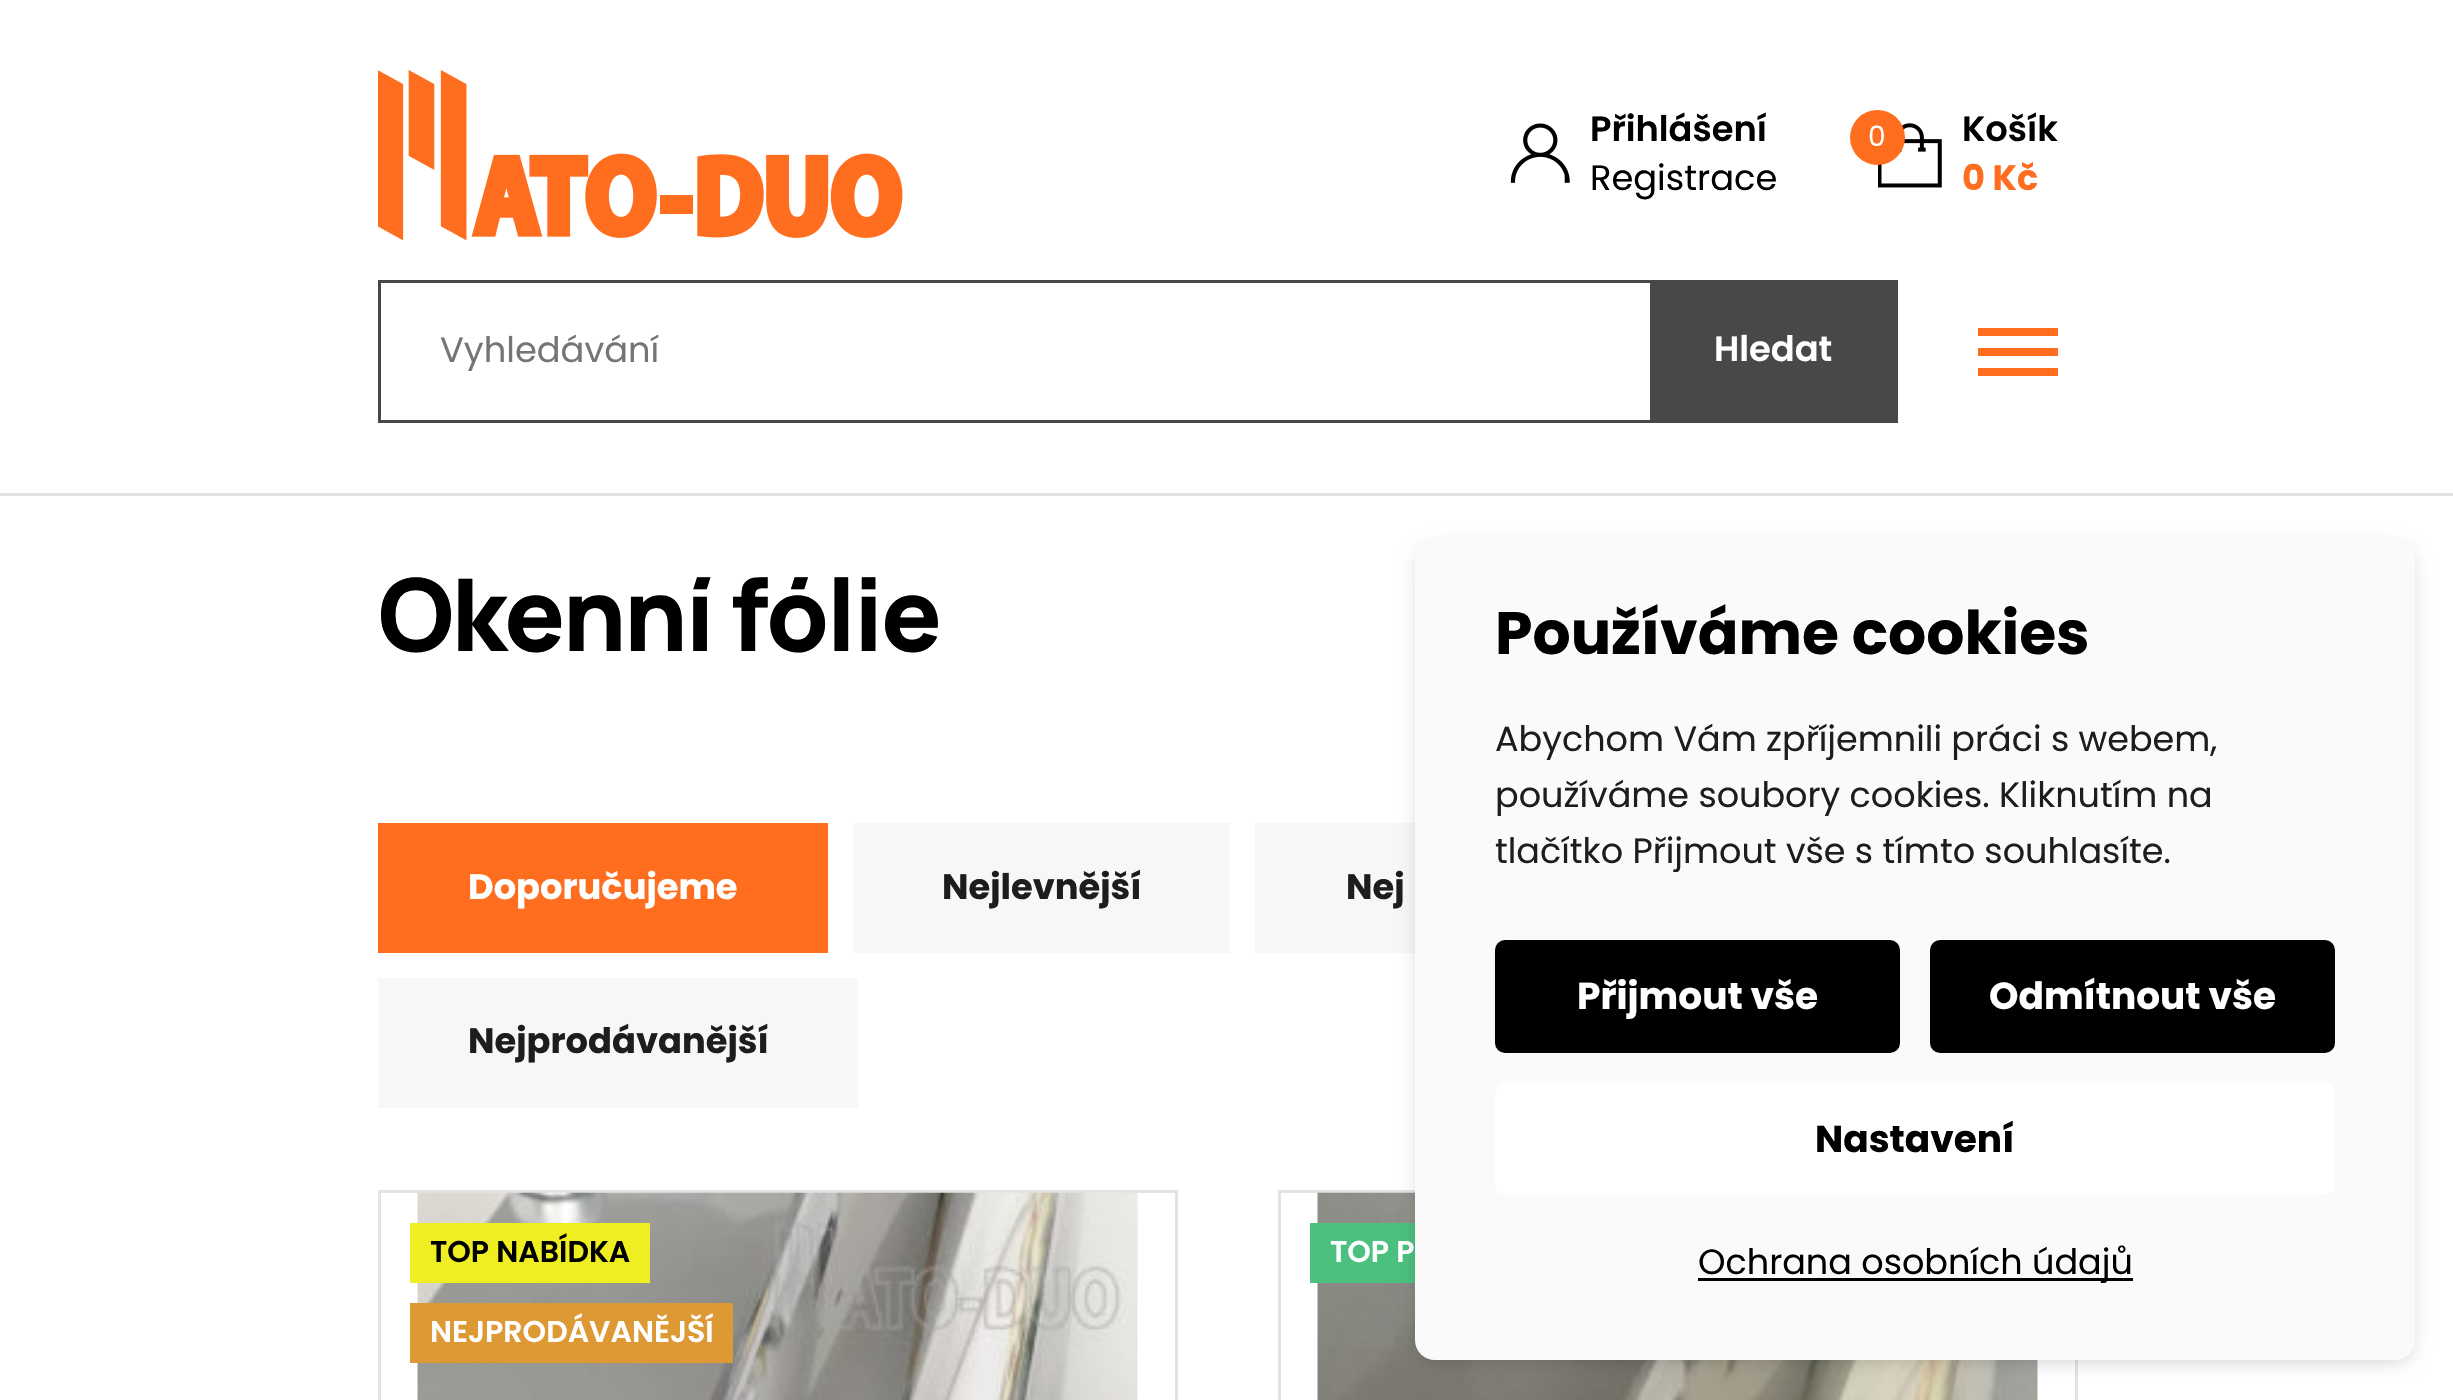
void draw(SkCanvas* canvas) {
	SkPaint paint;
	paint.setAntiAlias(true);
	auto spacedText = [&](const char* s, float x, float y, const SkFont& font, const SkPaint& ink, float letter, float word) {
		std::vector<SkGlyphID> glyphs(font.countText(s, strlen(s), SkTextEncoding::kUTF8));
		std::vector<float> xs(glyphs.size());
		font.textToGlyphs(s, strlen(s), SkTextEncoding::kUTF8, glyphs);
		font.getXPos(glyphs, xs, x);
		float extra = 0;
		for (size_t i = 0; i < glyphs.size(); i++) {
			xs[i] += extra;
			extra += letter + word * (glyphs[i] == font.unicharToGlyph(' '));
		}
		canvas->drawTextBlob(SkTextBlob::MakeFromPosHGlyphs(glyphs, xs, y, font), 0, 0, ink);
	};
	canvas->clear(0xffffffff);
	paint.setColor(0xffe3e3e3);
	canvas->drawRect(SkRect::MakeXYWH(0, 493, 2453, 3), paint);
	canvas->drawImageRect(SkImages::DeferredFromEncodedData(SkData::MakeFromFileName("img1.png")), SkRect::MakeXYWH(378, 70, 525, 170), SkSamplingOptions());
	canvas->drawImageRect(SkImages::DeferredFromEncodedData(SkData::MakeFromFileName("img2.png")), SkRect::MakeXYWH(1510, 123, 60, 60), SkSamplingOptions());
	SkFont f1(fontMgr->matchFamilyStyle("Poppins", SkFontStyle(600, SkFontStyle::kNormal_Width, SkFontStyle::kUpright_Slant)), 35.25);
	f1.setSubpixel(true);
	paint.setColor(0xff000000);
	canvas->drawString("Přihlášení", 1590, 141, f1, paint);
	SkFont f2(fontMgr->matchFamilyStyle("Poppins", SkFontStyle::Normal()), 35.25);
	f2.setSubpixel(true);
	canvas->drawString("Registrace", 1590, 190, f2, paint);
	canvas->drawImageRect(SkImages::DeferredFromEncodedData(SkData::MakeFromFileName("img3.png")), SkRect::MakeXYWH(1878, 123, 64, 65), SkSamplingOptions());
	paint.setColor(0xffff6e1f);
	canvas->drawCircle(1877.5, 137.5, 27.5, paint);
	SkFont f3(fontMgr->matchFamilyStyle("Poppins", SkFontStyle::Normal()), 28);
	f3.setSubpixel(true);
	paint.setColor(0xffffffff);
	canvas->drawString("0", 1868, 146, f3, paint);
	paint.setColor(0xff000000);
	canvas->drawString("Košík", 1962, 141, f1, paint);
	SkFont f4(fontMgr->matchFamilyStyle("Poppins", SkFontStyle::Bold()), 35.25);
	f4.setSubpixel(true);
	paint.setColor(0xffff6e1f);
	canvas->drawString("0 Kč", 1962, 190, f4, paint);
	paint.setStroke(true);
	paint.setStrokeWidth(3);
	paint.setColor(0xff484848);
	canvas->drawRect(SkRect::MakeXYWH(379.5, 281.5, 1272, 140), paint);
	paint.setStroke(false);
	paint.setColor(0xff757575);
	canvas->drawString("Vyhledávání", 440, 362, f2, paint);
	paint.setColor(0xff484848);
	canvas->drawRect(SkRect::MakeXYWH(1653, 280, 245, 143), paint);
	paint.setColor(0xffffffff);
	canvas->drawString("Hledat", 1714, 361, f1, paint);
	paint.setColor(0xffff6e1f);
	canvas->drawRect(SkRect::MakeXYWH(1978, 328, 80, 8), paint);
	canvas->drawRect(SkRect::MakeXYWH(1978, 348, 80, 8), paint);
	canvas->drawRect(SkRect::MakeXYWH(1978, 368, 80, 8), paint);
	SkFont f5(fontMgr->matchFamilyStyle("Manrope", SkFontStyle(200, SkFontStyle::kNormal_Width, SkFontStyle::kUpright_Slant)), 100.25);
	f5.setSubpixel(true);
	paint.setColor(0xff000000);
	spacedText("Okenní fólie", 378, 651, f5, paint, -2.5, 0);
	paint.setColor(0xffff6e1f);
	canvas->drawRect(SkRect::MakeXYWH(378, 823, 450, 130), paint);
	paint.setColor(0xffffffff);
	canvas->drawString("Doporučujeme", 468, 899, f4, paint);
	paint.setColor(0xfff7f7f7);
	canvas->drawRect(SkRect::MakeXYWH(853, 823, 377, 130), paint);
	paint.setColor(0xff1d1d1d);
	canvas->drawString("Nejlevnější", 942, 899, f4, paint);
	paint.setColor(0xfff7f7f7);
	canvas->drawRect(SkRect::MakeXYWH(1255, 823, 160, 130), paint);
	paint.setColor(0xff1d1d1d);
	canvas->drawString("Nej", 1346, 899, f4, paint);
	paint.setColor(0xfff7f7f7);
	canvas->drawRect(SkRect::MakeXYWH(378, 978, 480, 130), paint);
	paint.setColor(0xff1d1d1d);
	canvas->drawString("Nejprodávanější", 468, 1053, f4, paint);
	paint.setStroke(true);
	paint.setColor(0xffe3e3e3);
	canvas->drawRect(SkRect::MakeXYWH(379.5, 1191.5, 797, 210), paint);
	canvas->drawImageRect(SkImages::DeferredFromEncodedData(SkData::MakeFromFileName("img4.png")), SkRect::MakeXYWH(417, 1192, 721, 208), SkSamplingOptions());
	paint.setStroke(false);
	paint.setColor(0xffeeee22);
	canvas->drawRect(SkRect::MakeXYWH(410, 1223, 240, 60), paint);
	SkFont f6(fontMgr->matchFamilyStyle("Poppins", SkFontStyle(600, SkFontStyle::kNormal_Width, SkFontStyle::kUpright_Slant)), 30);
	f6.setSubpixel(true);
	paint.setColor(0xff000000);
	canvas->drawString("TOP NABÍDKA", 430, 1262, f6, paint);
	paint.setColor(0xffdd9933);
	canvas->drawRect(SkRect::MakeXYWH(410, 1303, 323, 60), paint);
	paint.setColor(0xffffffff);
	canvas->drawString("NEJPRODÁVANĚJŠÍ", 430, 1342, f6, paint);
	paint.setStroke(true);
	paint.setColor(0xffe3e3e3);
	canvas->drawRect(SkRect::MakeXYWH(1279.5, 1191.5, 797, 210), paint);
	canvas->drawImageRect(SkImages::DeferredFromEncodedData(SkData::MakeFromFileName("img5.png")), SkRect::MakeXYWH(1317, 1192, 721, 208), SkSamplingOptions());
	paint.setStroke(false);
	paint.setColor(0xff4cc07f);
	canvas->drawRect(SkRect::MakeXYWH(1310, 1223, 105, 60), paint);
	paint.setColor(0xffffffff);
	canvas->drawString("TOP P", 1330, 1262, f6, paint);
	paint.setColor(0x33000000);
	paint.setMaskFilter(SkMaskFilter::MakeBlur(kNormal_SkBlurStyle, 10));
	canvas->drawRoundRect(SkRect::MakeXYWH(1420, 550, 990, 810), 15, 15, paint);
	paint.setMaskFilter(nullptr);
	paint.setColor(0xfffafafa);
	canvas->drawRoundRect(SkRect::MakeXYWH(1415, 540, 1000, 820), 20, 20, paint);
	SkFont f7(fontMgr->matchFamilyStyle("Poppins", SkFontStyle::Bold()), 60);
	f7.setSubpixel(true);
	paint.setColor(0xff000000);
	canvas->drawString("Používáme cookies", 1495, 654, f7, paint);
	SkFont f8(fontMgr->matchFamilyStyle("Poppins", SkFontStyle::Normal()), 35);
	f8.setSubpixel(true);
	paint.setColor(0xff1d1d1d);
	canvas->drawString("Abychom Vám zpříjemnili práci s webem,", 1495, 751, f8, paint);
	canvas->drawString("používáme soubory cookies. Kliknutím na", 1495, 807, f8, paint);
	canvas->drawString("tlačítko Přijmout vše s tímto souhlasíte.", 1495, 863, f8, paint);
	paint.setColor(0xff000000);
	canvas->drawRoundRect(SkRect::MakeXYWH(1495, 940, 405, 113), 10, 10, paint);
	SkFont f9(fontMgr->matchFamilyStyle("Poppins", SkFontStyle::Bold()), 37.5);
	f9.setSubpixel(true);
	paint.setColor(0xffffffff);
	canvas->drawString("Přijmout vše", 1577, 1009, f9, paint);
	paint.setColor(0xff000000);
	canvas->drawRoundRect(SkRect::MakeXYWH(1930, 940, 405, 113), 10, 10, paint);
	paint.setColor(0xffffffff);
	canvas->drawString("Odmítnout vše", 1989, 1009, f9, paint);
	canvas->drawRoundRect(SkRect::MakeXYWH(1495, 1083, 840, 112), 10, 10, paint);
	paint.setColor(0xff000000);
	canvas->drawString("Nastavení", 1815, 1152, f9, paint);
	canvas->drawRect(SkRect::MakeXYWH(1698, 1278, 435, 3), paint);
	canvas->drawString("Ochrana osobních údajů", 1698, 1274, f8, paint);
}
